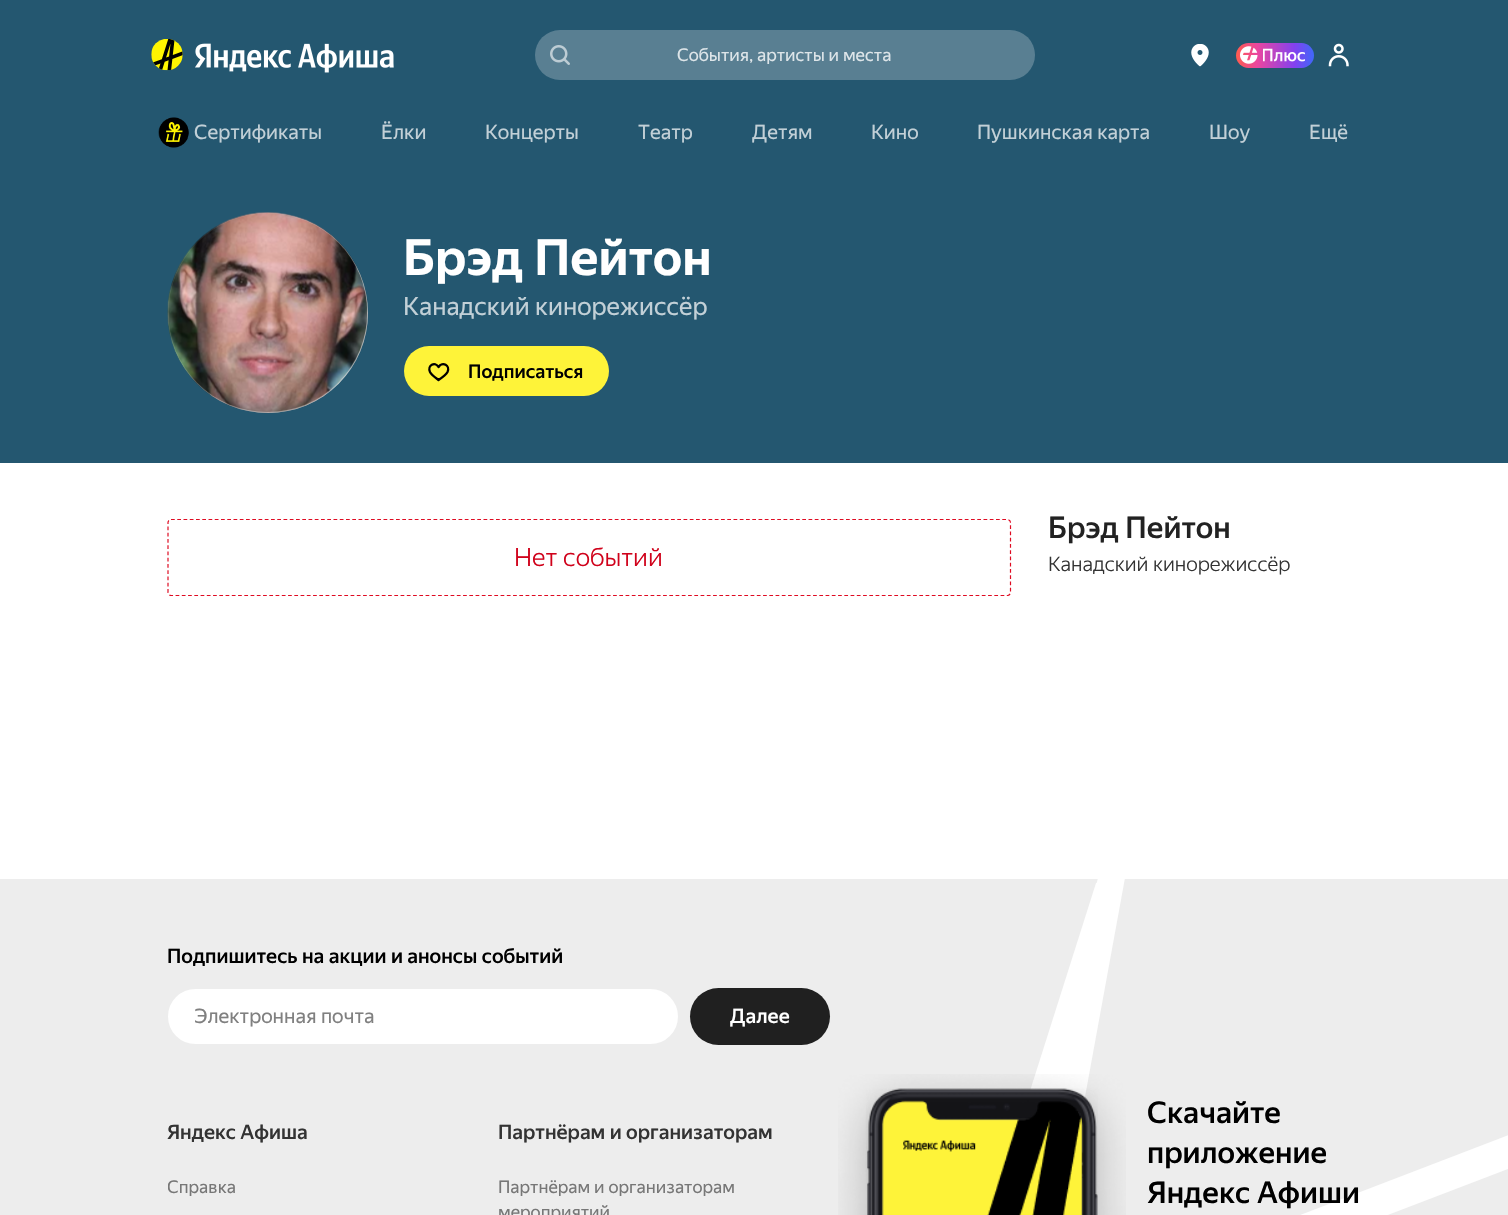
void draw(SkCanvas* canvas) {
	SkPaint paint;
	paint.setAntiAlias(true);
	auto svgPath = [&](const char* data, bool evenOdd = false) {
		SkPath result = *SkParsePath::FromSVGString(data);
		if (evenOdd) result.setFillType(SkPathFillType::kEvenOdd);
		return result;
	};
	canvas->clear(0xffffffff);
	paint.setColor(0xff245770);
	canvas->drawRect(SkRect::MakeXYWH(0, 0, 1508, 463), paint);
	canvas->drawImageRect(SkImages::DeferredFromEncodedData(SkData::MakeFromFileName("img1.png")), SkRect::MakeXYWH(151, 39, 32, 32), SkSamplingOptions());
	canvas->drawImageRect(SkImages::DeferredFromEncodedData(SkData::MakeFromFileName("img2.png")), SkRect::MakeXYWH(195, 43, 199, 30), SkSamplingOptions());
	canvas->drawImageRect(SkImages::DeferredFromEncodedData(SkData::MakeFromFileName("img3.png")), SkRect::MakeXYWH(550, 45, 20, 20), SkSamplingOptions());
	SkFont f1(fontMgr->matchFamilyStyle("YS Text", SkFontStyle::Normal()), 17.5);
	f1.setSubpixel(true);
	paint.setColor(0xffd3dde2);
	canvas->drawString("События, артисты и места", 677, 61, f1, paint);
	paint.setColor(0x3dffffff);
	canvas->drawRoundRect(SkRect::MakeXYWH(535, 30, 500, 50), 25, 25, paint);
	canvas->drawImageRect(SkImages::DeferredFromEncodedData(SkData::MakeFromFileName("img4.png")), SkRect::MakeXYWH(1191, 44, 18, 23), SkSamplingOptions());
	{
		const SkColor colors[] = {0xffff5c4d, 0xffeb469f, 0xff8341ef, 0xff3f68f9};
		const float stops[] = {0, 0.27, 0.75, 1};
		const SkPoint ends[] = {{1236, 55}, {1314, 55}};
		paint.setShader(SkGradientShader::MakeLinear(ends, colors, stops, 4, SkTileMode::kClamp));
		paint.setAlpha(255);
	}
	canvas->drawRoundRect(SkRect::MakeXYWH(1236, 43, 78, 25), 12.5, 12.5, paint);
	canvas->drawImageRect(SkImages::DeferredFromEncodedData(SkData::MakeFromFileName("img5.png")), SkRect::MakeXYWH(1240, 46, 18, 18), SkSamplingOptions());
	canvas->drawImageRect(SkImages::DeferredFromEncodedData(SkData::MakeFromFileName("img6.png")), SkRect::MakeXYWH(1263, 48, 42, 14), SkSamplingOptions());
	canvas->drawImageRect(SkImages::DeferredFromEncodedData(SkData::MakeFromFileName("img7.png")), SkRect::MakeXYWH(1328, 43, 21, 24), SkSamplingOptions());
	canvas->drawImageRect(SkImages::DeferredFromEncodedData(SkData::MakeFromFileName("img8.png")), SkRect::MakeXYWH(158, 117, 31, 31), SkSamplingOptions());
	SkFont f2(fontMgr->matchFamilyStyle("YS Text", SkFontStyle::Normal()), 20);
	f2.setSubpixel(true);
	paint.setShader(nullptr);
	paint.setColor(0xffc2d0d7);
	canvas->drawString("Сертификаты", 194, 139, f2, paint);
	canvas->drawString("Ёлки", 381, 139, f2, paint);
	canvas->drawString("Концерты", 485, 139, f2, paint);
	canvas->drawString("Театр", 638, 139, f2, paint);
	canvas->drawString("Детям", 752, 139, f2, paint);
	canvas->drawString("Кино", 871, 139, f2, paint);
	canvas->drawString("Пушкинская карта", 977, 139, f2, paint);
	canvas->drawString("Шоу", 1209, 139, f2, paint);
	canvas->drawString("Ещё", 1309, 139, f2, paint);
	paint.setColor(0xffd8d8d8);
	canvas->drawCircle(268, 313, 100, paint);
	canvas->drawImageRect(SkImages::DeferredFromEncodedData(SkData::MakeFromFileName("img9.png")), SkRect::MakeXYWH(167, 212, 201, 201), SkSamplingOptions());
	SkFont f3(fontMgr->matchFamilyStyle("YS Text", SkFontStyle::Bold()), 50);
	f3.setSubpixel(true);
	paint.setColor(0xffffffff);
	canvas->drawString("Брэд Пейтон", 403, 275, f3, paint);
	SkFont f4(fontMgr->matchFamilyStyle("YS Text", SkFontStyle::Normal()), 25);
	f4.setSubpixel(true);
	paint.setColor(0xffc2d0d7);
	canvas->drawString("Канадский кинорежиссёр", 403, 315, f4, paint);
	paint.setColor(0xfffef339);
	canvas->drawRoundRect(SkRect::MakeXYWH(404, 346, 205, 50), 25, 25, paint);
	paint.setStroke(true);
	paint.setStrokeWidth(2.3);
	paint.setStrokeCap(SkPaint::kSquare_Cap);
	paint.setStrokeJoin(SkPaint::kRound_Join);
	paint.setColor(0xff000000);
	canvas->drawPath(svgPath("M438.5 380C436 378 431.5 375 430 372C427 365.5 435 361 438.5 367C442.5 361 450.5 365.5 447.5 372C446 375 441.5 378 438.5 380Z"), paint);
	SkFont f5(fontMgr->matchFamilyStyle("YS Text", SkFontStyle(500, SkFontStyle::kNormal_Width, SkFontStyle::kUpright_Slant)), 18.75);
	f5.setSubpixel(true);
	paint.setStroke(false);
	canvas->drawString("Подписаться", 468, 378, f5, paint);
	paint.setStroke(true);
	paint.setStrokeWidth(1.2);
	paint.setStrokeCap(SkPaint::kButt_Cap);
	paint.setStrokeJoin(SkPaint::kMiter_Join);
	paint.setColor(0xffdf0b22);
	paint.setPathEffect(SkDashPathEffect::Make({{3.75f, 2.5f}}, 0));
	canvas->drawPath(svgPath("M171 519.5H1007.5C1009 519.5 1010.5 521 1010.5 522.5V592.5C1010.5 594 1009 595.5 1007.5 595.5H171C169.5 595.5 168 594 168 592.5V522.5C168 521 169.5 519.5 171 519.5Z"), paint);
	paint.setPathEffect(nullptr);
	SkFont f6(fontMgr->matchFamilyStyle("YS Text", SkFontStyle(300, SkFontStyle::kNormal_Width, SkFontStyle::kUpright_Slant)), 25);
	f6.setSubpixel(true);
	paint.setStroke(false);
	paint.setColor(0xffd0021b);
	canvas->drawString("Нет событий", 514, 566, f6, paint);
	SkFont f7(fontMgr->matchFamilyStyle("YS Text", SkFontStyle(500, SkFontStyle::kNormal_Width, SkFontStyle::kUpright_Slant)), 30);
	f7.setSubpixel(true);
	paint.setColor(0xff222222);
	canvas->drawString("Брэд Пейтон", 1048, 538, f7, paint);
	SkFont f8(fontMgr->matchFamilyStyle("YS Text", SkFontStyle(300, SkFontStyle::kNormal_Width, SkFontStyle::kUpright_Slant)), 20);
	f8.setSubpixel(true);
	paint.setColor(0xff333333);
	canvas->drawString("Канадский кинорежиссёр", 1048, 571, f8, paint);
	paint.setColor(0xffededed);
	canvas->drawRect(SkRect::MakeXYWH(0, 879, 1508, 336), paint);
	SkFont f9(fontMgr->matchFamilyStyle("YS Text", SkFontStyle(500, SkFontStyle::kNormal_Width, SkFontStyle::kUpright_Slant)), 20);
	f9.setSubpixel(true);
	paint.setColor(0xff000000);
	canvas->drawString("Подпишитесь на акции и анонсы событий", 167, 963, f9, paint);
	paint.setColor(0xffffffff);
	canvas->drawRoundRect(SkRect::MakeXYWH(169.5, 990.5, 507, 52), 26, 26, paint);
	paint.setStroke(true);
	paint.setStrokeWidth(3);
	canvas->drawRoundRect(SkRect::MakeXYWH(169.5, 990.5, 507, 52), 26, 26, paint);
	paint.setStroke(false);
	paint.setColor(0xff808080);
	canvas->drawString("Электронная почта", 194, 1023, f2, paint);
	paint.setColor(0xff202020);
	canvas->drawRoundRect(SkRect::MakeXYWH(690, 988, 140, 57), 28.5, 28.5, paint);
	paint.setColor(0xffffffff);
	canvas->drawString("Далее", 730, 1023, f9, paint);
	paint.setColor(0xff333333);
	canvas->drawString("Яндекс Афиша", 167, 1139, f9, paint);
	canvas->save();
	canvas->clipRect(SkRect::MakeXYWH(168, 1174, 331, 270));
	paint.setColor(0xff777777);
	canvas->drawString("Справка", 167, 1193, f1, paint);
	canvas->restore();
	paint.setColor(0xff333333);
	canvas->drawString("Партнёрам и организаторам", 498, 1139, f9, paint);
	paint.setColor(0xff777777);
	canvas->drawString("Партнёрам и организаторам", 498, 1193, f1, paint);
	canvas->drawString("мероприятий", 498, 1218, f1, paint);
	canvas->save();
	canvas->clipRect(SkRect::MakeXYWH(816, 879, 309, 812));
	paint.setColor(0xffffffff);
	canvas->drawPath(svgPath("M918 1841L1086 921L1098 878H1125L948 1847Z", true), paint);
	canvas->restore();
	canvas->drawPath(svgPath("M784 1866L1096 883H1123L1113 930L813 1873Z", true), paint);
	canvas->drawImageRect(SkImages::DeferredFromEncodedData(SkData::MakeFromFileName("img10.png")), SkRect::MakeXYWH(838, 1074, 288, 141), SkSamplingOptions());
	paint.setColor(0xff000000);
	canvas->drawString("Скачайте", 1147, 1123, f7, paint);
	paint.setColor(0xffffffff);
	canvas->drawPath(svgPath("M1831 1045L14 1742L5 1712L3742 278L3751 308Z", true), paint);
	paint.setColor(0xff000000);
	canvas->drawString("приложение", 1147, 1163, f7, paint);
	canvas->drawString("Яндекс Афиши", 1147, 1203, f7, paint);
}
